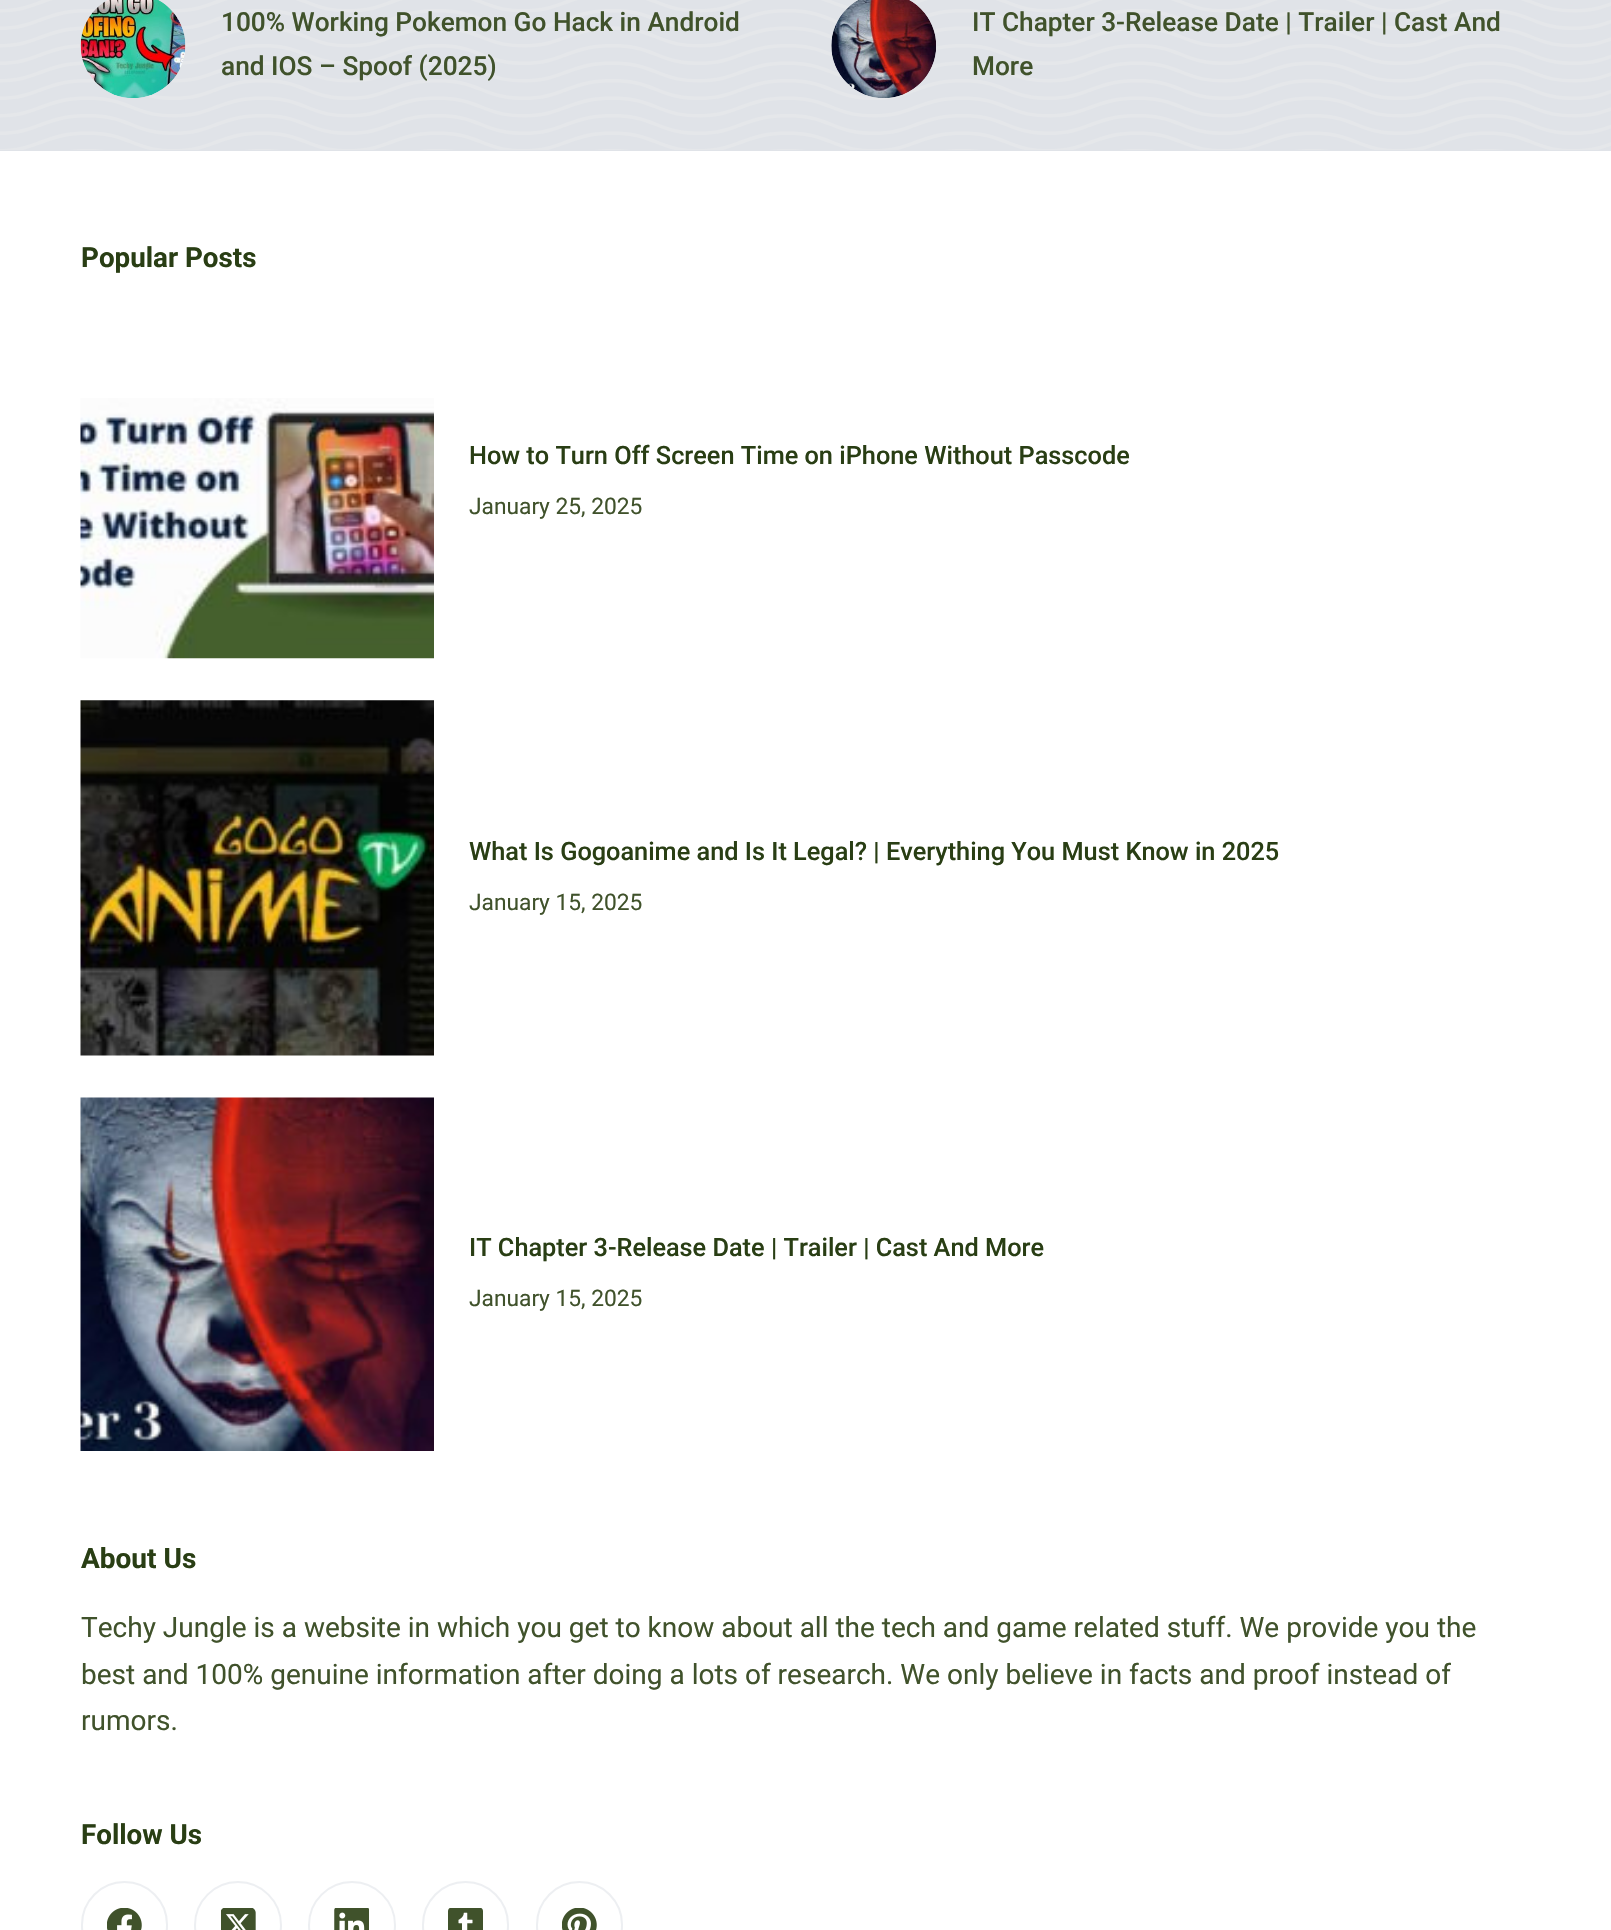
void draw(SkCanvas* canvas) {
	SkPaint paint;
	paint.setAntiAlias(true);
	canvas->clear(0xffffffff);
	paint.setColor(0xffe0e3e8);
	canvas->drawRect(SkRect::MakeXYWH(0, 0, 1611, 151), paint);
	canvas->drawImageRect(SkImages::DeferredFromEncodedData(SkData::MakeFromFileName("img1.png")), SkRect::MakeXYWH(0, 0, 1611, 150), SkSamplingOptions());
	canvas->drawImageRect(SkImages::DeferredFromEncodedData(SkData::MakeFromFileName("img2.png")), SkRect::MakeXYWH(80, 0, 106, 98), SkSamplingOptions());
	SkFont f1(fontMgr->matchFamilyStyle("Roboto", SkFontStyle(500, SkFontStyle::kNormal_Width, SkFontStyle::kUpright_Slant)), 26.25);
	f1.setSubpixel(true);
	paint.setColor(0xff40522b);
	canvas->drawString("100% Working Pokemon Go Hack in Android", 221, 31, f1, paint);
	canvas->drawString("and IOS – Spoof (2025)", 221, 75, f1, paint);
	canvas->drawImageRect(SkImages::DeferredFromEncodedData(SkData::MakeFromFileName("img3.png")), SkRect::MakeXYWH(831, 0, 105, 98), SkSamplingOptions());
	canvas->drawString("IT Chapter 3-Release Date | Trailer | Cast And", 972, 31, f1, paint);
	canvas->drawString("More", 972, 75, f1, paint);
	SkFont f2(fontMgr->matchFamilyStyle("Roboto", SkFontStyle::Bold()), 27.75);
	f2.setSubpixel(true);
	paint.setColor(0xff293e14);
	canvas->drawString("Popular Posts", 81, 267, f2, paint);
	canvas->drawImageRect(SkImages::DeferredFromEncodedData(SkData::MakeFromFileName("img4.png")), SkRect::MakeXYWH(80, 398, 354, 261), SkSamplingOptions());
	SkFont f3(fontMgr->matchFamilyStyle("Roboto", SkFontStyle(500, SkFontStyle::kNormal_Width, SkFontStyle::kUpright_Slant)), 25.3);
	f3.setSubpixel(true);
	canvas->drawString("How to Turn Off Screen Time on iPhone Without Passcode", 469, 464, f3, paint);
	SkFont f4(fontMgr->matchFamilyStyle("Roboto", SkFontStyle::Normal()), 22.75);
	f4.setSubpixel(true);
	paint.setColor(0xff40522b);
	canvas->drawString("January 25, 2025", 469, 514, f4, paint);
	canvas->drawImageRect(SkImages::DeferredFromEncodedData(SkData::MakeFromFileName("img5.png")), SkRect::MakeXYWH(80, 700, 354, 356), SkSamplingOptions());
	paint.setColor(0xff293e14);
	canvas->drawString("What Is Gogoanime and Is It Legal? | Everything You Must Know in 2025", 469, 860, f3, paint);
	paint.setColor(0xff40522b);
	canvas->drawString("January 15, 2025", 469, 910, f4, paint);
	canvas->drawImageRect(SkImages::DeferredFromEncodedData(SkData::MakeFromFileName("img6.png")), SkRect::MakeXYWH(80, 1097, 354, 354), SkSamplingOptions());
	paint.setColor(0xff293e14);
	canvas->drawString("IT Chapter 3-Release Date | Trailer | Cast And More", 469, 1256, f3, paint);
	paint.setColor(0xff40522b);
	canvas->drawString("January 15, 2025", 469, 1306, f4, paint);
	SkFont f5(fontMgr->matchFamilyStyle("Roboto", SkFontStyle::Bold()), 28);
	f5.setSubpixel(true);
	paint.setColor(0xff293e14);
	canvas->drawString("About Us", 81, 1568, f5, paint);
	SkFont f6(fontMgr->matchFamilyStyle("Roboto", SkFontStyle::Normal()), 28);
	f6.setSubpixel(true);
	paint.setColor(0xff40522b);
	canvas->drawString("Techy Jungle is a website in which you get to know about all the tech and game related stuff. We provide you the", 81, 1637, f6, paint);
	canvas->drawString("best and 100% genuine information after doing a lots of research. We only believe in facts and proof instead of", 81, 1684, f6, paint);
	canvas->drawString("rumors.", 81, 1730, f6, paint);
	paint.setColor(0xff293e14);
	canvas->drawString("Follow Us", 81, 1844, f2, paint);
	paint.setStroke(true);
	paint.setStrokeWidth(2);
	paint.setColor(0xffedeff2);
	canvas->drawRoundRect(SkRect::MakeXYWH(82, 1882, 85, 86), 42.5, 42.5, paint);
	canvas->drawImageRect(SkImages::DeferredFromEncodedData(SkData::MakeFromFileName("img7.png")), SkRect::MakeXYWH(107, 1908, 35, 22), SkSamplingOptions());
	canvas->drawCircle(238, 1925, 43, paint);
	canvas->drawImageRect(SkImages::DeferredFromEncodedData(SkData::MakeFromFileName("img8.png")), SkRect::MakeXYWH(221, 1908, 35, 22), SkSamplingOptions());
	canvas->drawCircle(352, 1925, 43, paint);
	canvas->drawImageRect(SkImages::DeferredFromEncodedData(SkData::MakeFromFileName("img9.png")), SkRect::MakeXYWH(334, 1908, 35, 22), SkSamplingOptions());
	canvas->drawRoundRect(SkRect::MakeXYWH(423, 1882, 85, 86), 42.5, 42.5, paint);
	canvas->drawImageRect(SkImages::DeferredFromEncodedData(SkData::MakeFromFileName("img10.png")), SkRect::MakeXYWH(448, 1908, 35, 22), SkSamplingOptions());
	canvas->drawRoundRect(SkRect::MakeXYWH(537, 1882, 85, 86), 42.5, 42.5, paint);
	canvas->drawImageRect(SkImages::DeferredFromEncodedData(SkData::MakeFromFileName("img11.png")), SkRect::MakeXYWH(562, 1908, 35, 22), SkSamplingOptions());
}
